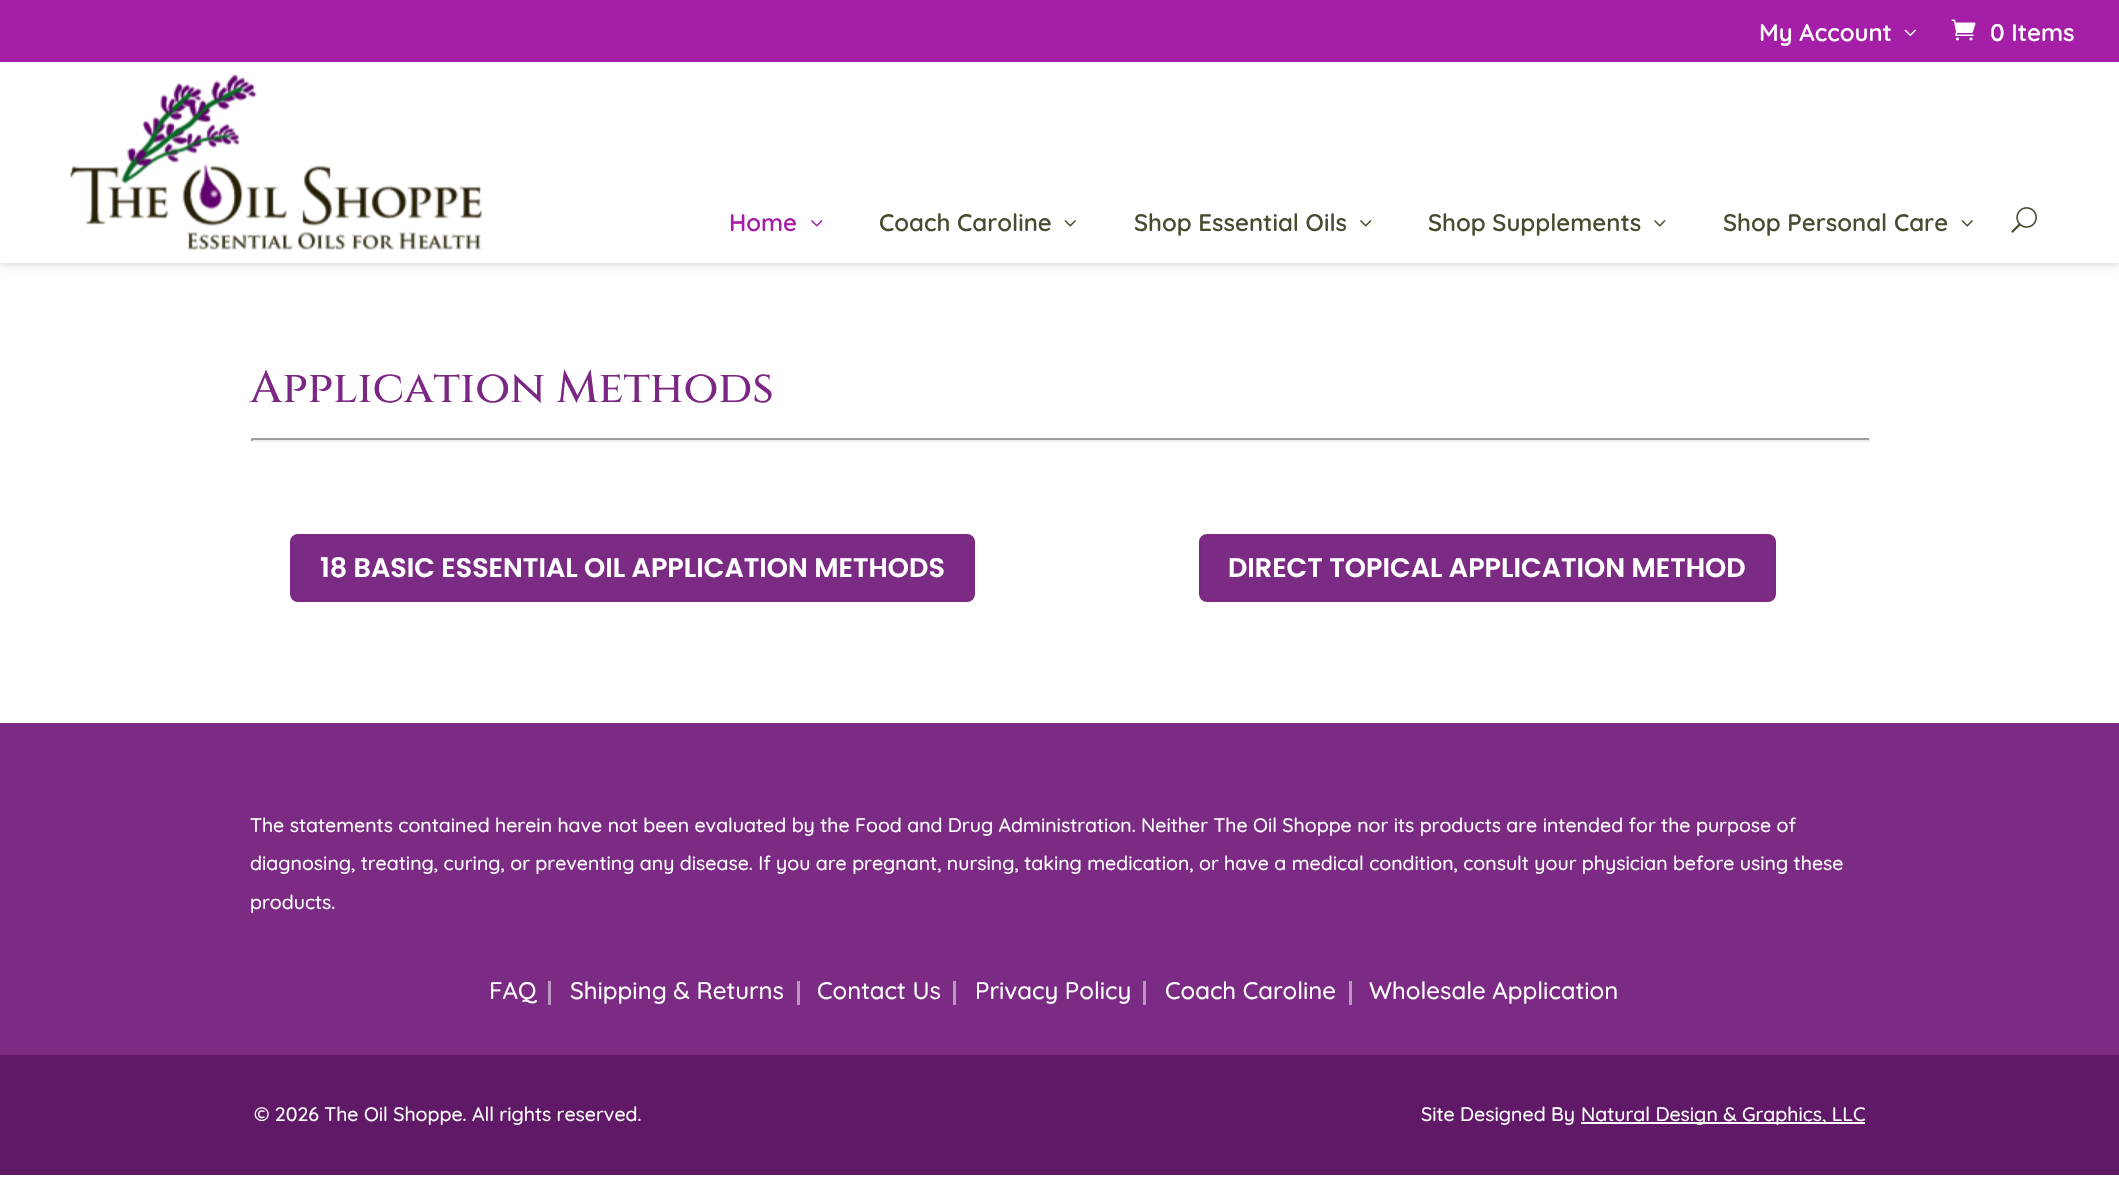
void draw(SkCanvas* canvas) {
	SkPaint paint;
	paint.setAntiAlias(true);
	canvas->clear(0xffffffff);
	paint.setColor(0x33000000);
	paint.setMaskFilter(SkMaskFilter::MakeBlur(kNormal_SkBlurStyle, 5));
	canvas->drawRect(SkRect::MakeXYWH(0, 62, 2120, 201), paint);
	paint.setMaskFilter(nullptr);
	paint.setColor(0xffa51ea8);
	canvas->drawRect(SkRect::MakeXYWH(0, 0, 2119, 62), paint);
	SkFont f1(fontMgr->matchFamilyStyle("Quicksand", SkFontStyle(600, SkFontStyle::kNormal_Width, SkFontStyle::kUpright_Slant)), 24);
	f1.setSubpixel(true);
	paint.setColor(0xffffffff);
	canvas->drawString("My Account", 1759, 41, f1, paint);
	canvas->drawImageRect(SkImages::DeferredFromEncodedData(SkData::MakeFromFileName("img1.png")), SkRect::MakeXYWH(1904, 29, 12, 7), SkSamplingOptions());
	canvas->drawImageRect(SkImages::DeferredFromEncodedData(SkData::MakeFromFileName("img2.png")), SkRect::MakeXYWH(1951, 19, 25, 22), SkSamplingOptions());
	canvas->drawString("0 Items", 1990, 41, f1, paint);
	canvas->drawRect(SkRect::MakeXYWH(0, 62, 2119, 201), paint);
	canvas->drawImageRect(SkImages::DeferredFromEncodedData(SkData::MakeFromFileName("img3.png")), SkRect::MakeXYWH(70, 74, 412, 176), SkSamplingOptions());
	paint.setColor(0xffa51ea8);
	canvas->drawString("Home", 729, 231, f1, paint);
	canvas->drawImageRect(SkImages::DeferredFromEncodedData(SkData::MakeFromFileName("img4.png")), SkRect::MakeXYWH(811, 220, 12, 7), SkSamplingOptions());
	paint.setColor(0xff4a4a30);
	canvas->drawString("Coach Caroline", 879, 231, f1, paint);
	canvas->drawImageRect(SkImages::DeferredFromEncodedData(SkData::MakeFromFileName("img5.png")), SkRect::MakeXYWH(1064, 220, 12, 7), SkSamplingOptions());
	canvas->drawString("Shop Essential Oils", 1134, 231, f1, paint);
	canvas->drawImageRect(SkImages::DeferredFromEncodedData(SkData::MakeFromFileName("img6.png")), SkRect::MakeXYWH(1360, 220, 12, 7), SkSamplingOptions());
	canvas->drawString("Shop Supplements", 1428, 231, f1, paint);
	canvas->drawImageRect(SkImages::DeferredFromEncodedData(SkData::MakeFromFileName("img6.png")), SkRect::MakeXYWH(1654, 220, 12, 7), SkSamplingOptions());
	canvas->drawString("Shop Personal Care", 1723, 231, f1, paint);
	canvas->drawImageRect(SkImages::DeferredFromEncodedData(SkData::MakeFromFileName("img5.png")), SkRect::MakeXYWH(1961, 220, 12, 7), SkSamplingOptions());
	canvas->drawImageRect(SkImages::DeferredFromEncodedData(SkData::MakeFromFileName("img7.png")), SkRect::MakeXYWH(2011, 207, 26, 26), SkSamplingOptions());
	SkFont f2(fontMgr->matchFamilyStyle("Cinzel", SkFontStyle(500, SkFontStyle::kNormal_Width, SkFontStyle::kUpright_Slant)), 45);
	f2.setSubpixel(true);
	paint.setColor(0xff7c2784);
	canvas->drawString("Application Methods", 250, 402, f2, paint);
	paint.setColor(0xff9f9f9f);
	canvas->drawRect(SkRect::MakeXYWH(251, 438, 1620, 2), paint);
	paint.setColor(0xffeeeeee);
	canvas->drawRect(SkRect::MakeXYWH(1869, 438, 2, 3), paint);
	canvas->drawRect(SkRect::MakeXYWH(251, 440, 1620, 2), paint);
	paint.setColor(0xff9f9f9f);
	canvas->drawRect(SkRect::MakeXYWH(251, 438, 2, 3), paint);
	paint.setColor(0xff7b2b83);
	canvas->drawRoundRect(SkRect::MakeXYWH(291.5, 535.5, 682, 65), 6.5, 6.5, paint);
	paint.setStroke(true);
	paint.setStrokeWidth(3);
	paint.setColor(0xff7c2784);
	canvas->drawRoundRect(SkRect::MakeXYWH(291.5, 535.5, 682, 65), 6.5, 6.5, paint);
	SkFont f3(fontMgr->matchFamilyStyle("Poppins", SkFontStyle(600, SkFontStyle::kNormal_Width, SkFontStyle::kUpright_Slant)), 27);
	f3.setSubpixel(true);
	paint.setStroke(false);
	paint.setColor(0xffffffff);
	canvas->drawString("18 BASIC ESSENTIAL OIL APPLICATION METHODS", 320, 577, f3, paint);
	paint.setColor(0xff7b2b83);
	canvas->drawRoundRect(SkRect::MakeXYWH(1200.5, 535.5, 574, 65), 6.5, 6.5, paint);
	paint.setStroke(true);
	paint.setColor(0xff7c2784);
	canvas->drawRoundRect(SkRect::MakeXYWH(1200.5, 535.5, 574, 65), 6.5, 6.5, paint);
	paint.setStroke(false);
	paint.setColor(0xffffffff);
	canvas->drawString("DIRECT TOPICAL APPLICATION METHOD", 1228, 577, f3, paint);
	paint.setColor(0xff7b2b83);
	canvas->drawRect(SkRect::MakeXYWH(0, 723, 2119, 332), paint);
	SkFont f4(fontMgr->matchFamilyStyle("Quicksand", SkFontStyle(300, SkFontStyle::kNormal_Width, SkFontStyle::kUpright_Slant)), 19.5);
	f4.setSubpixel(true);
	paint.setColor(0xffffffff);
	canvas->drawString("The statements contained herein have not been evaluated by the Food and Drug Administration. Neither The Oil Shoppe nor its products are intended for the purpose of", 250, 832, f4, paint);
	canvas->drawString("diagnosing, treating, curing, or preventing any disease. If you are pregnant, nursing, taking medication, or have a medical condition, consult your physician before using these", 250, 870, f4, paint);
	canvas->drawString("products.", 250, 909, f4, paint);
	SkFont f5(fontMgr->matchFamilyStyle("Quicksand", SkFontStyle(300, SkFontStyle::kNormal_Width, SkFontStyle::kUpright_Slant)), 24);
	f5.setSubpixel(true);
	canvas->drawString("FAQ", 489, 999, f5, paint);
	paint.setColor(0xffbd95c1);
	canvas->drawRect(SkRect::MakeXYWH(548, 981, 3, 24), paint);
	paint.setColor(0xffffffff);
	canvas->drawString("Shipping & Returns", 570, 999, f5, paint);
	paint.setColor(0xffbd95c1);
	canvas->drawRect(SkRect::MakeXYWH(797, 981, 3, 24), paint);
	paint.setColor(0xffffffff);
	canvas->drawString("Contact Us", 817, 999, f5, paint);
	paint.setColor(0xffbd95c1);
	canvas->drawRect(SkRect::MakeXYWH(953, 981, 3, 24), paint);
	paint.setColor(0xffffffff);
	canvas->drawString("Privacy Policy", 975, 999, f5, paint);
	paint.setColor(0xffbd95c1);
	canvas->drawRect(SkRect::MakeXYWH(1143, 981, 3, 24), paint);
	paint.setColor(0xffffffff);
	canvas->drawString("Coach Caroline", 1165, 999, f5, paint);
	paint.setColor(0xffbd95c1);
	canvas->drawRect(SkRect::MakeXYWH(1349, 981, 3, 24), paint);
	paint.setColor(0xffffffff);
	canvas->drawString("Wholesale Application", 1369, 999, f5, paint);
	paint.setColor(0xff5f1966);
	canvas->drawRect(SkRect::MakeXYWH(0, 1055, 2119, 120), paint);
	paint.setColor(0xffffffff);
	canvas->drawString("© 2026 The Oil Shoppe. All rights reserved.", 254, 1121, f4, paint);
	canvas->drawString("Site Designed By", 1421, 1121, f4, paint);
	canvas->drawRect(SkRect::MakeXYWH(1581, 1122, 284, 2), paint);
	canvas->drawString("Natural Design & Graphics, LLC", 1581, 1121, f4, paint);
}
